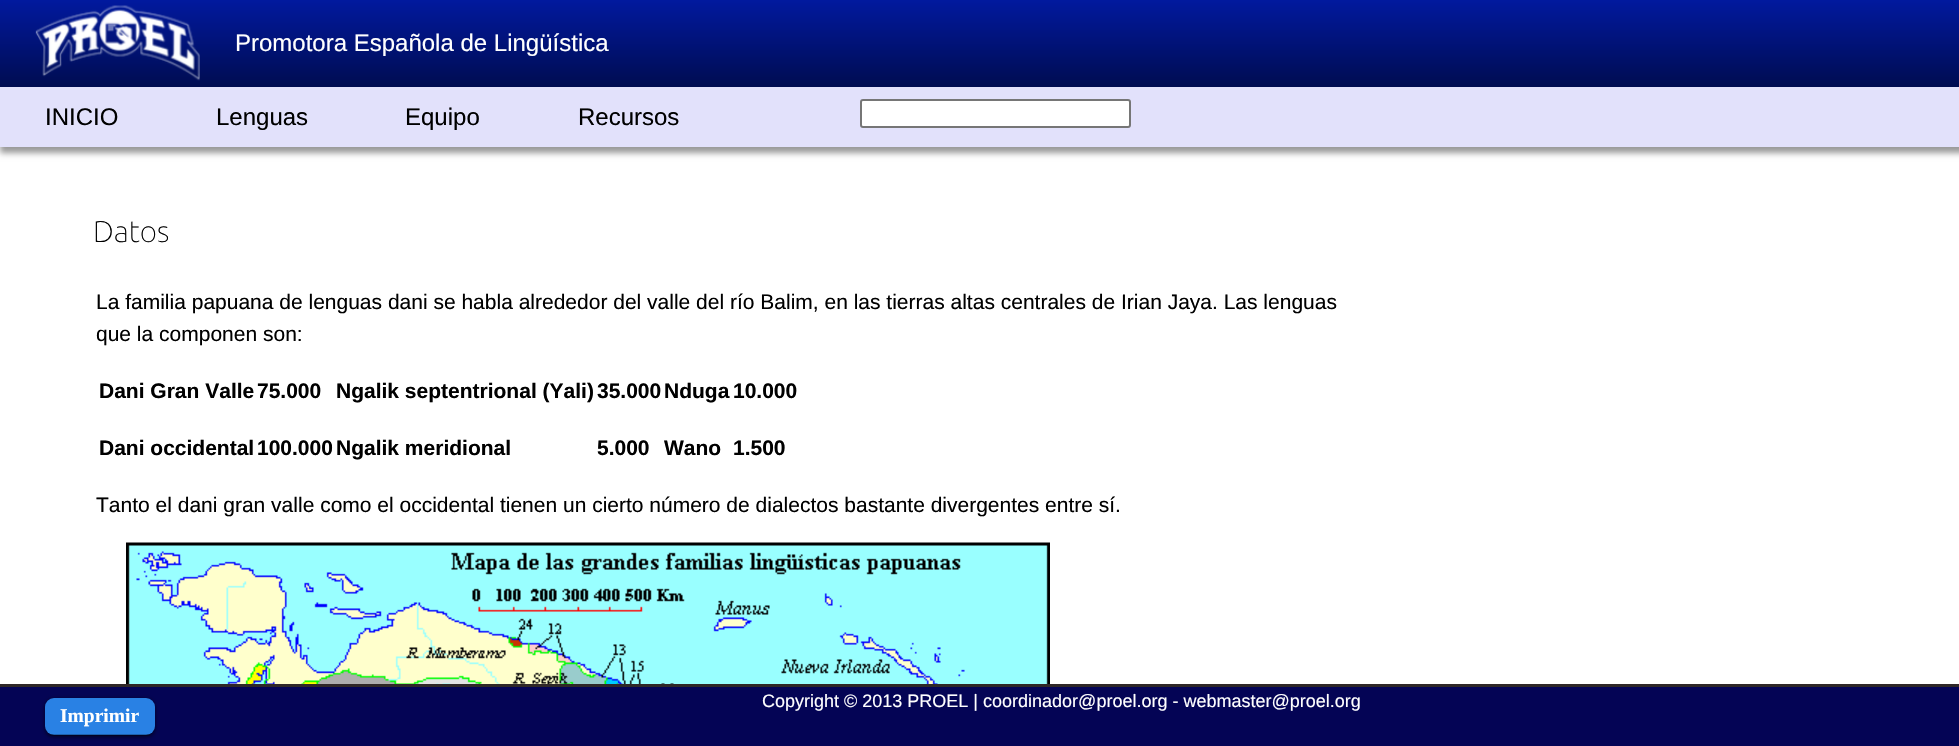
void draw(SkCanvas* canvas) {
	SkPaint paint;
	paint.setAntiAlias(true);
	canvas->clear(0xffffffff);
	{
		const SkColor colors[] = {0xff01199e, 0xff000c51};
		const float stops[] = {0, 1};
		const SkPoint ends[] = {{980, 0}, {980, 87}};
		paint.setShader(SkGradientShader::MakeLinear(ends, colors, stops, 2, SkTileMode::kClamp));
		paint.setAlpha(255);
	}
	canvas->drawRect(SkRect::MakeXYWH(0, 0, 1959, 87), paint);
	canvas->drawImageRect(SkImages::DeferredFromEncodedData(SkData::MakeFromFileName("img1.png")), SkRect::MakeXYWH(35, 5, 165, 76), SkSamplingOptions());
	SkFont f1(fontMgr->matchFamilyStyle("Liberation Sans", SkFontStyle::Normal()), 24);
	f1.setSubpixel(true);
	paint.setShader(nullptr);
	paint.setColor(0xffffffff);
	canvas->drawString("Promotora Española de Lingüística", 235, 51, f1, paint);
	paint.setColor(0x66000000);
	paint.setMaskFilter(SkMaskFilter::MakeBlur(kNormal_SkBlurStyle, 3));
	canvas->drawRect(SkRect::MakeXYWH(0, 93, 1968, 60), paint);
	paint.setMaskFilter(nullptr);
	paint.setColor(0xffe2e1fb);
	canvas->drawRect(SkRect::MakeXYWH(0, 87, 1959, 60), paint);
	paint.setColor(0xff000000);
	canvas->drawString("INICIO", 45, 125, f1, paint);
	canvas->drawString("Lenguas", 216, 125, f1, paint);
	canvas->drawString("Equipo", 405, 125, f1, paint);
	canvas->drawString("Recursos", 578, 125, f1, paint);
	paint.setColor(0xffffffff);
	canvas->drawRoundRect(SkRect::MakeXYWH(861, 100, 269, 27), 2, 2, paint);
	paint.setStroke(true);
	paint.setStrokeWidth(2);
	paint.setColor(0xff767676);
	canvas->drawRoundRect(SkRect::MakeXYWH(861, 100, 269, 27), 2, 2, paint);
	SkFont f2(fontMgr->matchFamilyStyle("Ubuntu", SkFontStyle(100, SkFontStyle::kNormal_Width, SkFontStyle::kUpright_Slant)), 30);
	f2.setSubpixel(true);
	paint.setStroke(false);
	paint.setColor(0xff000000);
	canvas->drawString("Datos", 93, 242, f2, paint);
	SkFont f3(fontMgr->matchFamilyStyle("Liberation Sans", SkFontStyle::Normal()), 21);
	f3.setSubpixel(true);
	canvas->drawString("La familia papuana de lenguas dani se habla alrededor del valle del río Balim, en las tierras altas centrales de Irian Jaya. Las lenguas", 96, 309, f3, paint);
	canvas->drawString("que la componen son:", 96, 341, f3, paint);
	SkFont f4(fontMgr->matchFamilyStyle("Liberation Sans", SkFontStyle::Bold()), 21);
	f4.setSubpixel(true);
	canvas->drawString("Dani Gran Valle", 99, 398, f4, paint);
	canvas->drawString("75.000", 257, 398, f4, paint);
	canvas->drawString("Ngalik septentrional (Yali)", 336, 398, f4, paint);
	canvas->drawString("35.000", 597, 398, f4, paint);
	canvas->drawString("Nduga", 664, 398, f4, paint);
	canvas->drawString("10.000", 733, 398, f4, paint);
	canvas->drawString("Dani occidental", 99, 455, f4, paint);
	canvas->drawString("100.000", 257, 455, f4, paint);
	canvas->drawString("Ngalik meridional", 336, 455, f4, paint);
	canvas->drawString("5.000", 597, 455, f4, paint);
	canvas->drawString("Wano", 664, 455, f4, paint);
	canvas->drawString("1.500", 733, 455, f4, paint);
	canvas->drawString("Tanto el dani gran valle como el occidental tienen un cierto número de dialectos bastante divergentes entre sí.", 96, 512, f3, paint);
	canvas->drawImageRect(SkImages::DeferredFromEncodedData(SkData::MakeFromFileName("img2.png")), SkRect::MakeXYWH(126, 542, 924, 142), SkSamplingOptions());
	paint.setColor(0xff040455);
	canvas->drawRect(SkRect::MakeXYWH(0, 687, 1959, 59), paint);
	paint.setColor(0xff2f2727);
	canvas->drawRect(SkRect::MakeXYWH(0, 684, 1959, 3), paint);
	SkFont f5(fontMgr->matchFamilyStyle("Liberation Sans", SkFontStyle::Normal()), 18);
	f5.setSubpixel(true);
	paint.setColor(0xffffffff);
	canvas->drawString("Copyright © 2013 PROEL | coordinador@proel.org - webmaster@proel.org", 762, 707, f5, paint);
	paint.setColor(0x99000000);
	paint.setMaskFilter(SkMaskFilter::MakeBlur(kNormal_SkBlurStyle, 2));
	canvas->drawRoundRect(SkRect::MakeXYWH(45, 699, 110, 38), 9, 9, paint);
	paint.setMaskFilter(nullptr);
	paint.setColor(0xff2981e4);
	canvas->drawRoundRect(SkRect::MakeXYWH(45, 698, 110, 37), 9, 9, paint);
	paint.setColor(0x40000000);
	canvas->drawRect(SkRect::MakeXYWH(50, 734, 100, 2), paint);
	SkFont f6(fontMgr->matchFamilyStyle("Liberation Serif", SkFontStyle::Bold()), 19.5);
	f6.setSubpixel(true);
	paint.setColor(0xffffffff);
	canvas->drawString("Imprimir", 60, 722, f6, paint);
}
